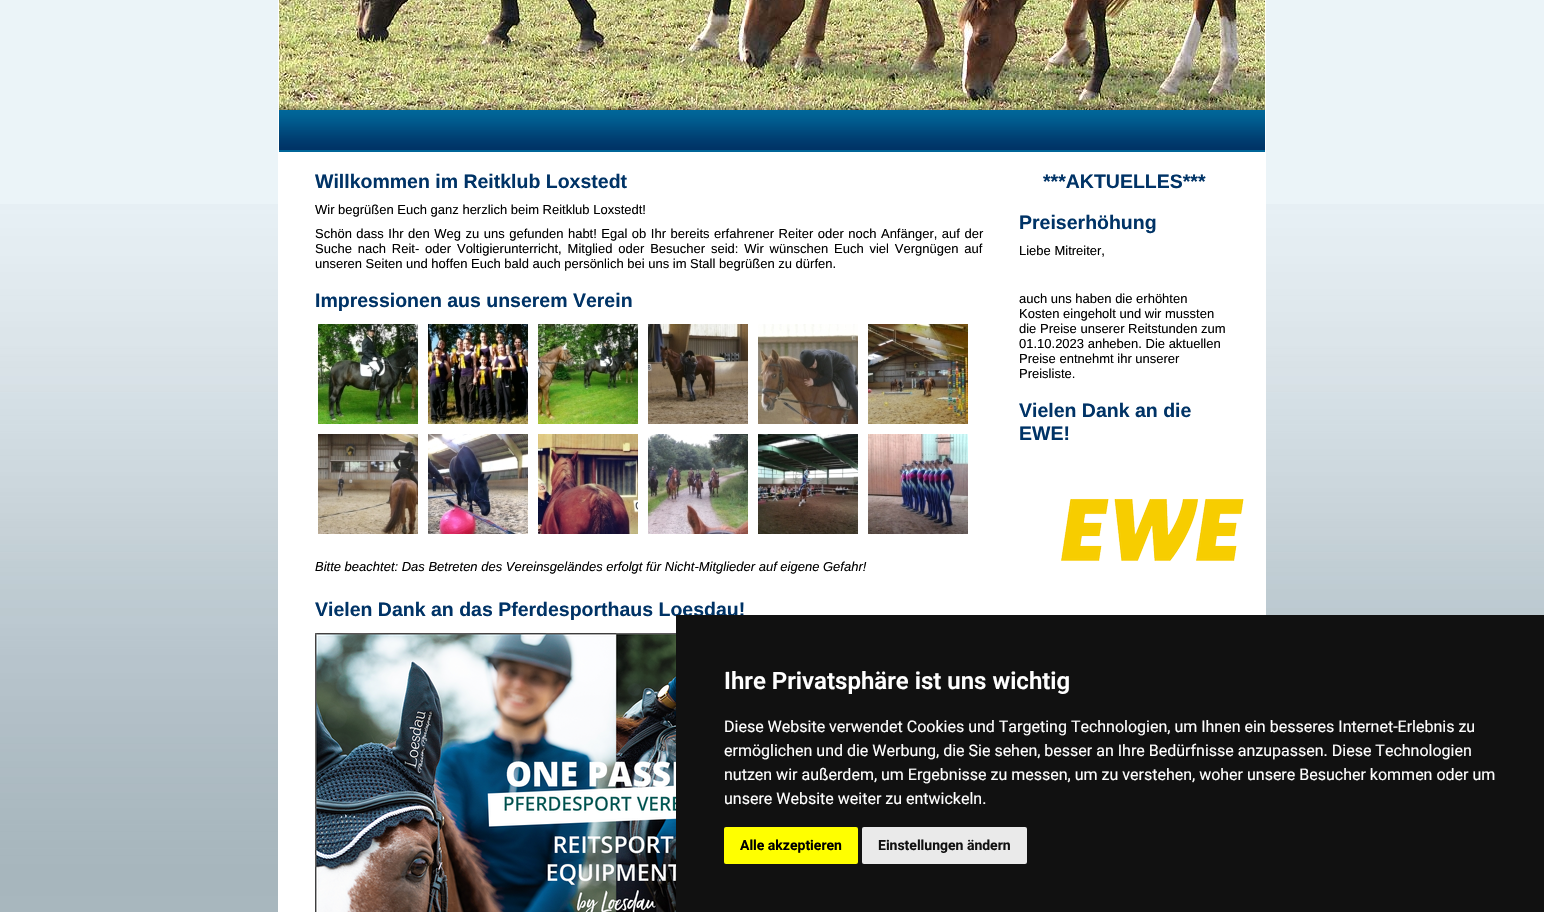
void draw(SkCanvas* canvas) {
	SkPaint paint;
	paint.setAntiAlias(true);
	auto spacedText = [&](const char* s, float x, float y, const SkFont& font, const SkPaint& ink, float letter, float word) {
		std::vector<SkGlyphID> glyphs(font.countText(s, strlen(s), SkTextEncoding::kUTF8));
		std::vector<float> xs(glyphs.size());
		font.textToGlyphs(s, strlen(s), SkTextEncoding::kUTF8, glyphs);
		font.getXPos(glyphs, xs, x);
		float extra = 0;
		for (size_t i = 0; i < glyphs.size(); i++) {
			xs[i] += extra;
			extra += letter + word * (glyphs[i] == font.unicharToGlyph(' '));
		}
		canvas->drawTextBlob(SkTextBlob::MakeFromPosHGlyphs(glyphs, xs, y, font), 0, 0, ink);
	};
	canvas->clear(0xffebf4f8);
	canvas->drawImageRect(SkImages::DeferredFromEncodedData(SkData::MakeFromFileName("img1.png")), SkRect::MakeXYWH(0, 204, 1544, 708), SkSamplingOptions());
	paint.setStroke(true);
	paint.setStrokeWidth(1);
	paint.setColor(0xffffffff);
	canvas->drawRect(SkRect::MakeXYWH(278.5, -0.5, 987, 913), paint);
	canvas->drawImageRect(SkImages::DeferredFromEncodedData(SkData::MakeFromFileName("img2.png")), SkRect::MakeXYWH(279, 0, 986, 110), SkSamplingOptions());
	canvas->drawImageRect(SkImages::DeferredFromEncodedData(SkData::MakeFromFileName("img3.png")), SkRect::MakeXYWH(279, 110, 986, 42), SkSamplingOptions());
	paint.setStroke(false);
	canvas->drawRect(SkRect::MakeXYWH(279, 152, 986, 760), paint);
	SkFont f1(fontMgr->matchFamilyStyle("Liberation Sans", SkFontStyle::Bold()), 19.5);
	f1.setSubpixel(true);
	paint.setColor(0xff003366);
	canvas->drawString("Willkommen im Reitklub Loxstedt", 315, 188, f1, paint);
	SkFont f2(fontMgr->matchFamilyStyle("Liberation Sans", SkFontStyle::Normal()), 13);
	f2.setSubpixel(true);
	paint.setColor(0xff000000);
	canvas->drawString("Wir begrüßen Euch ganz herzlich beim Reitklub Loxstedt!", 315, 214, f2, paint);
	spacedText("Schön dass Ihr den Weg zu uns gefunden habt! Egal ob Ihr bereits erfahrener Reiter oder noch Anfänger, auf der", 315, 238, f2, paint, 0, 0.9);
	spacedText("Suche nach Reit- oder Voltigierunterricht, Mitglied oder Besucher seid: Wir wünschen Euch viel Vergnügen auf", 315, 253, f2, paint, 0, 2.25);
	canvas->drawString("unseren Seiten und hoffen Euch bald auch persönlich bei uns im Stall begrüßen zu dürfen.", 315, 268, f2, paint);
	paint.setColor(0xff003366);
	canvas->drawString("Impressionen aus unserem Verein", 315, 307, f1, paint);
	canvas->drawImageRect(SkImages::DeferredFromEncodedData(SkData::MakeFromFileName("img4.png")), SkRect::MakeXYWH(318, 324, 100, 100), SkSamplingOptions());
	canvas->drawImageRect(SkImages::DeferredFromEncodedData(SkData::MakeFromFileName("img5.png")), SkRect::MakeXYWH(428, 324, 100, 100), SkSamplingOptions());
	canvas->drawImageRect(SkImages::DeferredFromEncodedData(SkData::MakeFromFileName("img6.png")), SkRect::MakeXYWH(538, 324, 100, 100), SkSamplingOptions());
	canvas->drawImageRect(SkImages::DeferredFromEncodedData(SkData::MakeFromFileName("img7.png")), SkRect::MakeXYWH(648, 324, 100, 100), SkSamplingOptions());
	canvas->drawImageRect(SkImages::DeferredFromEncodedData(SkData::MakeFromFileName("img8.png")), SkRect::MakeXYWH(758, 324, 100, 100), SkSamplingOptions());
	canvas->drawImageRect(SkImages::DeferredFromEncodedData(SkData::MakeFromFileName("img9.png")), SkRect::MakeXYWH(868, 324, 100, 100), SkSamplingOptions());
	canvas->drawImageRect(SkImages::DeferredFromEncodedData(SkData::MakeFromFileName("img10.png")), SkRect::MakeXYWH(318, 434, 100, 100), SkSamplingOptions());
	canvas->drawImageRect(SkImages::DeferredFromEncodedData(SkData::MakeFromFileName("img11.png")), SkRect::MakeXYWH(428, 434, 100, 100), SkSamplingOptions());
	canvas->drawImageRect(SkImages::DeferredFromEncodedData(SkData::MakeFromFileName("img12.png")), SkRect::MakeXYWH(538, 434, 100, 100), SkSamplingOptions());
	canvas->drawImageRect(SkImages::DeferredFromEncodedData(SkData::MakeFromFileName("img13.png")), SkRect::MakeXYWH(648, 434, 100, 100), SkSamplingOptions());
	canvas->drawImageRect(SkImages::DeferredFromEncodedData(SkData::MakeFromFileName("img14.png")), SkRect::MakeXYWH(758, 434, 100, 100), SkSamplingOptions());
	canvas->drawImageRect(SkImages::DeferredFromEncodedData(SkData::MakeFromFileName("img15.png")), SkRect::MakeXYWH(868, 434, 100, 100), SkSamplingOptions());
	SkFont f3(fontMgr->matchFamilyStyle("Liberation Sans", SkFontStyle::Italic()), 13);
	f3.setSubpixel(true);
	paint.setColor(0xff000000);
	canvas->drawString("Bitte beachtet: Das Betreten des Vereinsgeländes erfolgt für Nicht-Mitglieder auf eigene Gefahr!", 315, 571, f3, paint);
	paint.setColor(0xff003366);
	canvas->drawString("Vielen Dank an das Pferdesporthaus Loesdau!", 315, 616, f1, paint);
	canvas->drawImageRect(SkImages::DeferredFromEncodedData(SkData::MakeFromFileName("img16.png")), SkRect::MakeXYWH(315, 633, 361, 279), SkSamplingOptions());
	canvas->drawString("***AKTUELLES***", 1043, 188, f1, paint);
	canvas->drawString("Preiserhöhung", 1019, 229, f1, paint);
	paint.setColor(0xff000000);
	canvas->drawString("Liebe Mitreiter,", 1019, 255, f2, paint);
	canvas->drawString("auch uns haben die erhöhten", 1019, 303, f2, paint);
	canvas->drawString("Kosten eingeholt und wir mussten", 1019, 318, f2, paint);
	canvas->drawString("die Preise unserer Reitstunden zum", 1019, 333, f2, paint);
	canvas->drawString("01.10.2023 anheben. Die aktuellen", 1019, 348, f2, paint);
	canvas->drawString("Preise entnehmt ihr unserer", 1019, 363, f2, paint);
	canvas->drawString("Preisliste.", 1019, 378, f2, paint);
	paint.setColor(0xff003366);
	canvas->drawString("Vielen Dank an die", 1019, 417, f1, paint);
	canvas->drawString("EWE!", 1019, 440, f1, paint);
	canvas->drawImageRect(SkImages::DeferredFromEncodedData(SkData::MakeFromFileName("img17.png")), SkRect::MakeXYWH(1061, 498, 183, 63), SkSamplingOptions());
	paint.setColor(0xff111111);
	canvas->drawRect(SkRect::MakeXYWH(676, 615, 868, 297), paint);
	SkFont f4(fontMgr->matchFamilyStyle("Roboto", SkFontStyle(600, SkFontStyle::kNormal_Width, SkFontStyle::kUpright_Slant)), 24);
	f4.setSubpixel(true);
	paint.setColor(0xffffffff);
	canvas->drawString("Ihre Privatsphäre ist uns wichtig", 724, 689, f4, paint);
	SkFont f5(fontMgr->matchFamilyStyle("Roboto", SkFontStyle::Normal()), 16);
	f5.setSubpixel(true);
	canvas->drawString("Diese Website verwendet Cookies und Targeting Technologien, um Ihnen ein besseres Internet-Erlebnis zu", 724, 732, f5, paint);
	canvas->drawString("ermöglichen und die Werbung, die Sie sehen, besser an Ihre Bedürfnisse anzupassen. Diese Technologien", 724, 756, f5, paint);
	canvas->drawString("nutzen wir außerdem, um Ergebnisse zu messen, um zu verstehen, woher unsere Besucher kommen oder um", 724, 780, f5, paint);
	canvas->drawString("unsere Website weiter zu entwickeln.", 724, 804, f5, paint);
	paint.setColor(0xffffff00);
	canvas->drawRoundRect(SkRect::MakeXYWH(724, 827, 134, 37), 2, 2, paint);
	SkFont f6(fontMgr->matchFamilyStyle("Roboto", SkFontStyle::Bold()), 14);
	f6.setSubpixel(true);
	paint.setColor(0xff000000);
	canvas->drawString("Alle akzeptieren", 740, 850, f6, paint);
	paint.setColor(0xffeaeaea);
	canvas->drawRoundRect(SkRect::MakeXYWH(862, 827, 165, 37), 2, 2, paint);
	paint.setColor(0xff111111);
	canvas->drawString("Einstellungen ändern", 878, 850, f6, paint);
}
